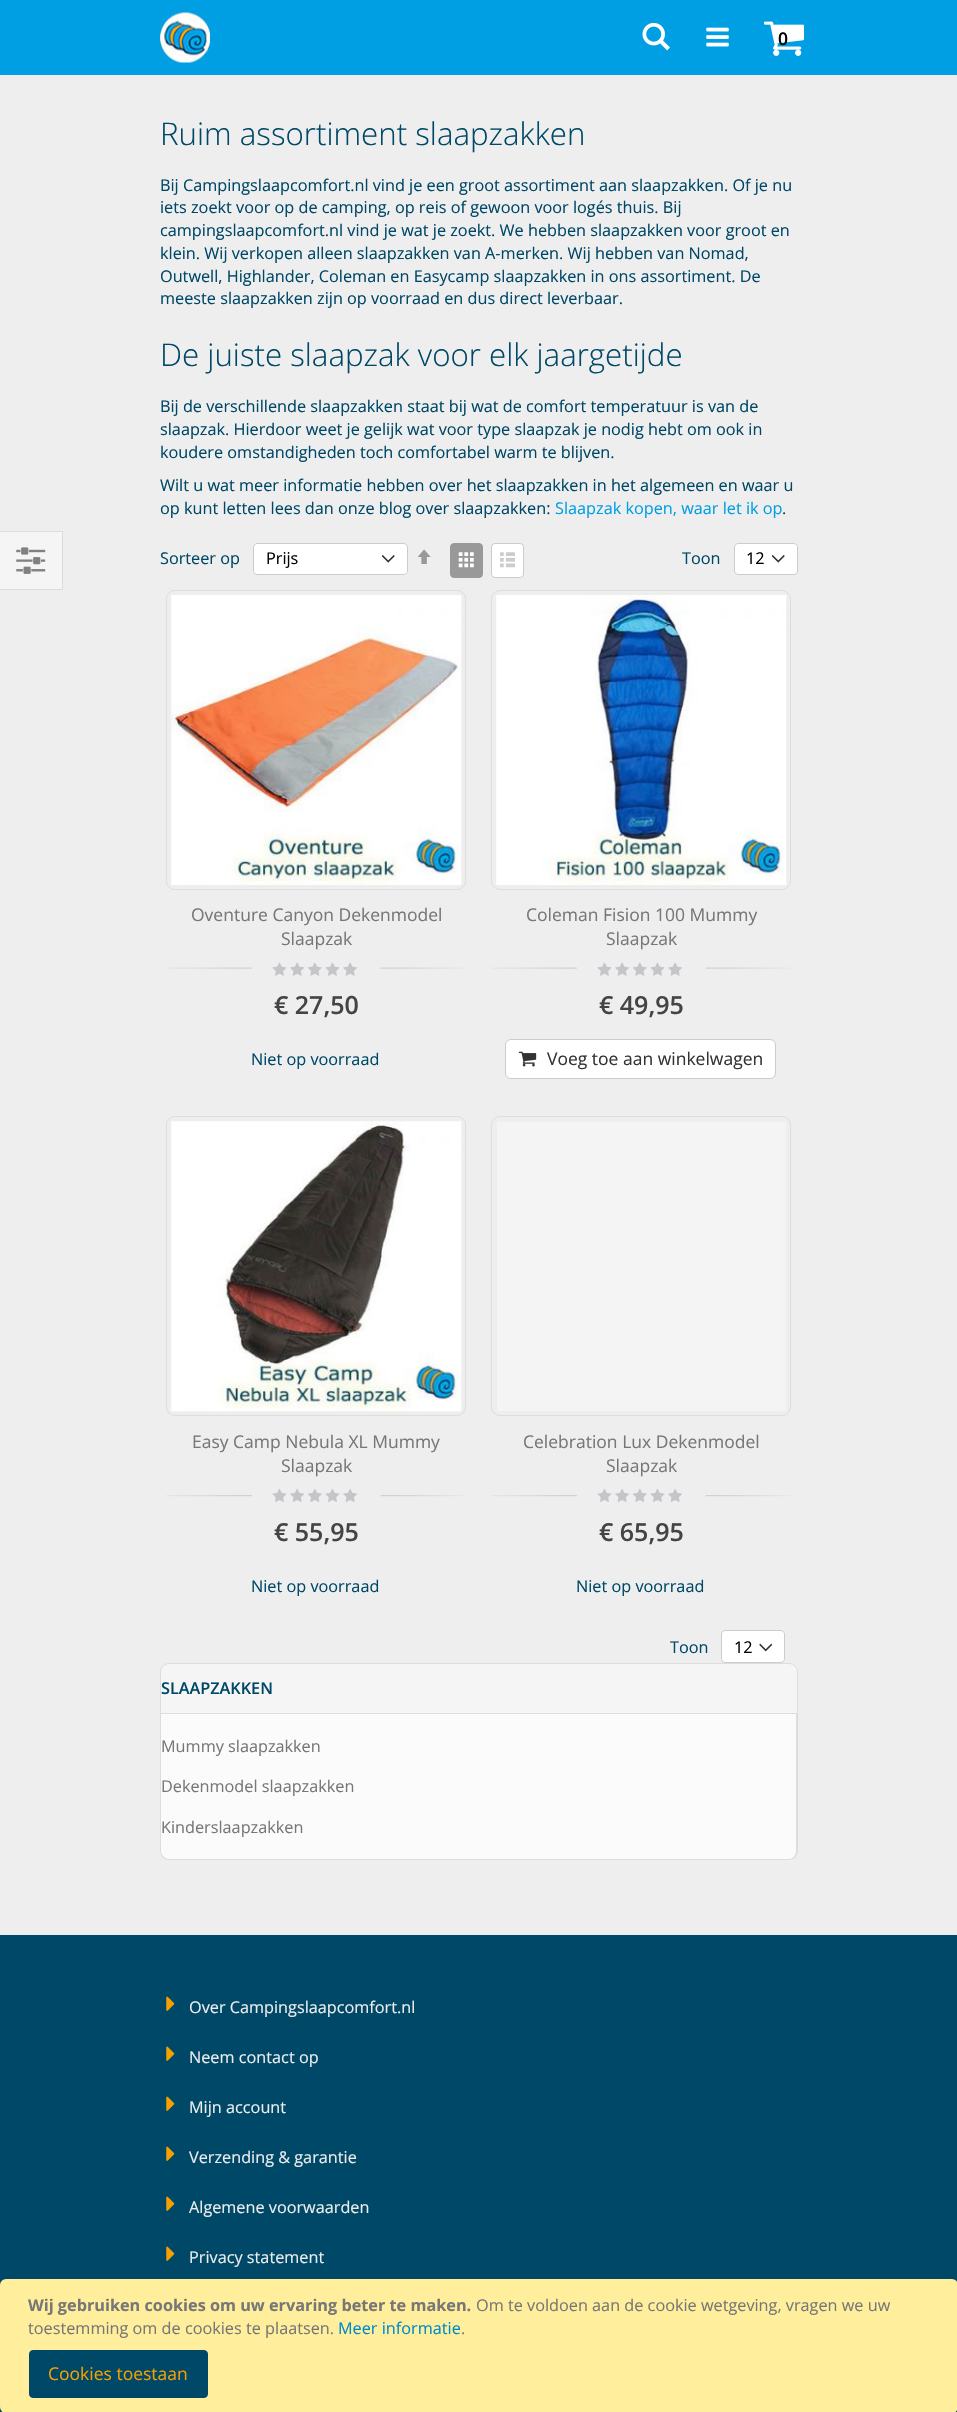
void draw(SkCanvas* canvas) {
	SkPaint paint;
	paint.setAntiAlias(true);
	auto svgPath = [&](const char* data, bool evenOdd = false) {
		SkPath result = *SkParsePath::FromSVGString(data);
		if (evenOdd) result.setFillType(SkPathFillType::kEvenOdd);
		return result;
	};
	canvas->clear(0xffeeeeee);
	paint.setColor(0xff009fe3);
	canvas->drawRect(SkRect::MakeXYWH(0, 0, 957, 75), paint);
	canvas->drawImageRect(SkImages::DeferredFromEncodedData(SkData::MakeFromFileName("img1.png")), SkRect::MakeXYWH(160, 12, 50, 51), SkSamplingOptions());
	canvas->drawImageRect(SkImages::DeferredFromEncodedData(SkData::MakeFromFileName("img2.png")), SkRect::MakeXYWH(642, 22, 28, 29), SkSamplingOptions());
	canvas->drawImageRect(SkImages::DeferredFromEncodedData(SkData::MakeFromFileName("img3.png")), SkRect::MakeXYWH(706, 27, 23, 20), SkSamplingOptions());
	canvas->drawImageRect(SkImages::DeferredFromEncodedData(SkData::MakeFromFileName("img4.png")), SkRect::MakeXYWH(764, 21, 40, 35), SkSamplingOptions());
	SkFont f1(fontMgr->matchFamilyStyle("Open Sans", SkFontStyle(600, SkFontStyle::kNormal_Width, SkFontStyle::kUpright_Slant)), 17.5);
	f1.setSubpixel(true);
	paint.setColor(0xff000000);
	canvas->drawString("0", 778, 45, f1, paint);
	SkFont f2(fontMgr->matchFamilyStyle("Open Sans", SkFontStyle(300, SkFontStyle::kNormal_Width, SkFontStyle::kUpright_Slant)), 31.25);
	f2.setSubpixel(true);
	paint.setColor(0xff004867);
	canvas->drawString("Ruim assortiment slaapzakken", 160, 145, f2, paint);
	SkFont f3(fontMgr->matchFamilyStyle("Open Sans", SkFontStyle::Normal()), 16.25);
	f3.setSubpixel(true);
	canvas->drawString("Bij Campingslaapcomfort.nl vind je een groot assortiment aan slaapzakken. Of je nu", 160, 191, f3, paint);
	canvas->drawString("iets zoekt voor op de camping, op reis of gewoon voor logés thuis. Bij", 160, 213, f3, paint);
	canvas->drawString("campingslaapcomfort.nl vind je wat je zoekt. We hebben slaapzakken voor groot en", 160, 236, f3, paint);
	canvas->drawString("klein. Wij verkopen alleen slaapzakken van A-merken. Wij hebben van Nomad,", 160, 259, f3, paint);
	canvas->drawString("Outwell, Highlander, Coleman en Easycamp slaapzakken in ons assortiment. De", 160, 282, f3, paint);
	canvas->drawString("meeste slaapzakken zijn op voorraad en dus direct leverbaar.", 160, 304, f3, paint);
	canvas->drawString("De juiste slaapzak voor elk jaargetijde", 160, 366, f2, paint);
	canvas->drawString("Bij de verschillende slaapzakken staat bij wat de comfort temperatuur is van de", 160, 412, f3, paint);
	canvas->drawString("slaapzak. Hierdoor weet je gelijk wat voor type slaapzak je nodig hebt om ook in", 160, 435, f3, paint);
	canvas->drawString("koudere omstandigheden toch comfortabel warm te blijven.", 160, 458, f3, paint);
	canvas->drawString("Wilt u wat meer informatie hebben over het slaapzakken in het algemeen en waar u", 160, 491, f3, paint);
	canvas->drawString("op kunt letten lees dan onze blog over slaapzakken:", 160, 514, f3, paint);
	paint.setColor(0xff009fe3);
	canvas->drawString("Slaapzak kopen, waar let ik op", 555, 514, f3, paint);
	paint.setColor(0xff004867);
	canvas->drawString(".", 782, 514, f3, paint);
	canvas->drawString("Sorteer op", 160, 564, f3, paint);
	paint.setColor(0xffffffff);
	canvas->drawRoundRect(SkRect::MakeXYWH(253, 543, 155, 32), 4, 4, paint);
	canvas->drawImageRect(SkImages::DeferredFromEncodedData(SkData::MakeFromFileName("img5.png")), SkRect::MakeXYWH(381, 554, 14, 9), SkSamplingOptions());
	paint.setStroke(true);
	paint.setStrokeWidth(1);
	paint.setColor(0xffcccccc);
	canvas->drawRoundRect(SkRect::MakeXYWH(253.5, 543.5, 154, 31), 3.5, 3.5, paint);
	paint.setStroke(false);
	paint.setColor(0xff000000);
	canvas->drawString("Prijs", 266, 564, f3, paint);
	canvas->drawImageRect(SkImages::DeferredFromEncodedData(SkData::MakeFromFileName("img6.png")), SkRect::MakeXYWH(418, 549, 13, 15), SkSamplingOptions());
	paint.setColor(0xff999999);
	canvas->drawRoundRect(SkRect::MakeXYWH(450.5, 543.5, 32, 34), 3.5, 3.5, paint);
	paint.setStroke(true);
	canvas->drawRoundRect(SkRect::MakeXYWH(450.5, 543.5, 32, 34), 3.5, 3.5, paint);
	canvas->drawImageRect(SkImages::DeferredFromEncodedData(SkData::MakeFromFileName("img7.png")), SkRect::MakeXYWH(458, 552, 16, 16), SkSamplingOptions());
	paint.setStroke(false);
	paint.setColor(0xffffffff);
	canvas->drawRoundRect(SkRect::MakeXYWH(491.5, 543.5, 32, 34), 3.5, 3.5, paint);
	paint.setStroke(true);
	paint.setColor(0xffcccccc);
	canvas->drawRoundRect(SkRect::MakeXYWH(491.5, 543.5, 32, 34), 3.5, 3.5, paint);
	canvas->drawImageRect(SkImages::DeferredFromEncodedData(SkData::MakeFromFileName("img8.png")), SkRect::MakeXYWH(500, 552, 15, 16), SkSamplingOptions());
	paint.setStroke(false);
	paint.setColor(0xff004867);
	canvas->drawString("Toon", 682, 564, f3, paint);
	paint.setColor(0xffffffff);
	canvas->drawRoundRect(SkRect::MakeXYWH(734, 543, 64, 32), 4, 4, paint);
	canvas->drawImageRect(SkImages::DeferredFromEncodedData(SkData::MakeFromFileName("img5.png")), SkRect::MakeXYWH(771, 554, 14, 9), SkSamplingOptions());
	paint.setStroke(true);
	paint.setColor(0xffcccccc);
	canvas->drawRoundRect(SkRect::MakeXYWH(734.5, 543.5, 63, 31), 3.5, 3.5, paint);
	paint.setStroke(false);
	paint.setColor(0xff000000);
	canvas->drawString("12", 746, 564, f3, paint);
	paint.setStroke(true);
	paint.setColor(0xffdddddd);
	canvas->drawRoundRect(SkRect::MakeXYWH(166.5, 590.5, 299, 299), 8.5, 8.5, paint);
	canvas->drawImageRect(SkImages::DeferredFromEncodedData(SkData::MakeFromFileName("img9.png")), SkRect::MakeXYWH(171, 595, 291, 290), SkSamplingOptions());
	SkFont f4(fontMgr->matchFamilyStyle("Open Sans", SkFontStyle::Normal()), 17.5);
	f4.setSubpixel(true);
	paint.setStroke(false);
	paint.setColor(0xff777777);
	canvas->drawString("Oventure Canyon Dekenmodel", 191, 921, f4, paint);
	canvas->drawString("Slaapzak", 281, 945, f4, paint);
	canvas->drawImageRect(SkImages::DeferredFromEncodedData(SkData::MakeFromFileName("img10.png")), SkRect::MakeXYWH(167, 967, 299, 2), SkSamplingOptions());
	canvas->drawImageRect(SkImages::DeferredFromEncodedData(SkData::MakeFromFileName("img11.png")), SkRect::MakeXYWH(272, 962, 85, 14), SkSamplingOptions());
	SkFont f5(fontMgr->matchFamilyStyle("Open Sans", SkFontStyle(600, SkFontStyle::kNormal_Width, SkFontStyle::kUpright_Slant)), 25);
	f5.setSubpixel(true);
	paint.setColor(0xff444444);
	canvas->drawString("€ 27,50", 274, 1014, f5, paint);
	paint.setColor(0xff004867);
	canvas->drawString("Niet op voorraad", 251, 1065, f3, paint);
	paint.setStroke(true);
	paint.setColor(0xffdddddd);
	canvas->drawRoundRect(SkRect::MakeXYWH(491.5, 590.5, 299, 299), 8.5, 8.5, paint);
	canvas->drawImageRect(SkImages::DeferredFromEncodedData(SkData::MakeFromFileName("img12.png")), SkRect::MakeXYWH(496, 595, 291, 290), SkSamplingOptions());
	paint.setStroke(false);
	paint.setColor(0xff777777);
	canvas->drawString("Coleman Fision 100 Mummy", 526, 921, f4, paint);
	canvas->drawString("Slaapzak", 606, 945, f4, paint);
	canvas->drawImageRect(SkImages::DeferredFromEncodedData(SkData::MakeFromFileName("img10.png")), SkRect::MakeXYWH(492, 967, 299, 2), SkSamplingOptions());
	canvas->drawImageRect(SkImages::DeferredFromEncodedData(SkData::MakeFromFileName("img11.png")), SkRect::MakeXYWH(597, 962, 85, 14), SkSamplingOptions());
	paint.setColor(0xff444444);
	canvas->drawString("€ 49,95", 599, 1014, f5, paint);
	paint.setColor(0xffffffff);
	canvas->drawRoundRect(SkRect::MakeXYWH(505.5, 1039.5, 270, 39), 5.5, 5.5, paint);
	paint.setStroke(true);
	paint.setColor(0xffcccccc);
	canvas->drawRoundRect(SkRect::MakeXYWH(505.5, 1039.5, 270, 39), 5.5, 5.5, paint);
	canvas->drawImageRect(SkImages::DeferredFromEncodedData(SkData::MakeFromFileName("img13.png")), SkRect::MakeXYWH(518, 1051, 19, 16), SkSamplingOptions());
	paint.setStroke(false);
	paint.setColor(0xff333333);
	canvas->drawString("Voeg toe aan winkelwagen", 547, 1065, f4, paint);
	paint.setStroke(true);
	paint.setColor(0xffdddddd);
	canvas->drawRoundRect(SkRect::MakeXYWH(166.5, 1116.5, 299, 299), 8.5, 8.5, paint);
	canvas->drawImageRect(SkImages::DeferredFromEncodedData(SkData::MakeFromFileName("img14.png")), SkRect::MakeXYWH(171, 1121, 291, 291), SkSamplingOptions());
	paint.setStroke(false);
	paint.setColor(0xff777777);
	canvas->drawString("Easy Camp Nebula XL Mummy", 192, 1448, f4, paint);
	canvas->drawString("Slaapzak", 281, 1472, f4, paint);
	canvas->drawImageRect(SkImages::DeferredFromEncodedData(SkData::MakeFromFileName("img15.png")), SkRect::MakeXYWH(166, 1495, 300, 2), SkSamplingOptions());
	canvas->drawImageRect(SkImages::DeferredFromEncodedData(SkData::MakeFromFileName("img16.png")), SkRect::MakeXYWH(272, 1488, 85, 14), SkSamplingOptions());
	paint.setColor(0xff444444);
	canvas->drawString("€ 55,95", 274, 1541, f5, paint);
	paint.setColor(0xff004867);
	canvas->drawString("Niet op voorraad", 251, 1592, f3, paint);
	paint.setStroke(true);
	paint.setColor(0xffdddddd);
	canvas->drawRoundRect(SkRect::MakeXYWH(491.5, 1116.5, 299, 299), 8.5, 8.5, paint);
	paint.setStroke(false);
	paint.setColor(0xfff4f4f4);
	canvas->drawRect(SkRect::MakeXYWH(497, 1122, 289, 289), paint);
	paint.setColor(0xff777777);
	canvas->drawString("Celebration Lux Dekenmodel", 523, 1448, f4, paint);
	canvas->drawString("Slaapzak", 606, 1472, f4, paint);
	canvas->drawImageRect(SkImages::DeferredFromEncodedData(SkData::MakeFromFileName("img15.png")), SkRect::MakeXYWH(491, 1495, 300, 2), SkSamplingOptions());
	canvas->drawImageRect(SkImages::DeferredFromEncodedData(SkData::MakeFromFileName("img16.png")), SkRect::MakeXYWH(597, 1488, 85, 14), SkSamplingOptions());
	paint.setColor(0xff444444);
	canvas->drawString("€ 65,95", 599, 1541, f5, paint);
	paint.setColor(0xff004867);
	canvas->drawString("Niet op voorraad", 576, 1592, f3, paint);
	canvas->drawString("Toon", 670, 1653, f3, paint);
	paint.setColor(0xffffffff);
	canvas->drawRoundRect(SkRect::MakeXYWH(721, 1630, 64, 33), 4, 4, paint);
	canvas->drawImageRect(SkImages::DeferredFromEncodedData(SkData::MakeFromFileName("img17.png")), SkRect::MakeXYWH(759, 1643, 14, 9), SkSamplingOptions());
	paint.setStroke(true);
	paint.setColor(0xffcccccc);
	canvas->drawRoundRect(SkRect::MakeXYWH(721.5, 1630.5, 63, 32), 3.5, 3.5, paint);
	paint.setStroke(false);
	paint.setColor(0xff000000);
	canvas->drawString("12", 734, 1653, f3, paint);
	paint.setColor(0xfff5f5f5);
	canvas->drawRect(SkRect::MakeXYWH(-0.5, 531.5, 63, 58), paint);
	paint.setStroke(true);
	paint.setColor(0xffdcdcda);
	canvas->drawRect(SkRect::MakeXYWH(-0.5, 531.5, 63, 58), paint);
	canvas->drawImageRect(SkImages::DeferredFromEncodedData(SkData::MakeFromFileName("img18.png")), SkRect::MakeXYWH(16, 547, 30, 27), SkSamplingOptions());
	paint.setStroke(false);
	paint.setColor(0xfff5f5f5);
	canvas->drawPath(svgPath("M169 1663.5H789C793.5 1663.5 797.5 1667.5 797.5 1672V1713.5H160.5V1672C160.5 1667.5 164.5 1663.5 169 1663.5Z"), paint);
	paint.setStroke(true);
	paint.setColor(0xffdddddd);
	canvas->drawPath(svgPath("M169 1663.5H789C793.5 1663.5 797.5 1667.5 797.5 1672V1713.5H160.5V1672C160.5 1667.5 164.5 1663.5 169 1663.5Z"), paint);
	SkFont f6(fontMgr->matchFamilyStyle("Open Sans", SkFontStyle(600, SkFontStyle::kNormal_Width, SkFontStyle::kUpright_Slant)), 16.25);
	f6.setSubpixel(true);
	paint.setStroke(false);
	paint.setColor(0xff004867);
	canvas->drawString("SLAAPZAKKEN", 161, 1694, f6, paint);
	paint.setColor(0xfffbfbfb);
	canvas->drawPath(svgPath("M160 1714H798V1851C798 1856 794 1860 789 1860H169C164 1860 160 1856 160 1851Z"), paint);
	paint.setColor(0xffdddddd);
	canvas->drawPath(svgPath("M160 1714H798V1851C798 1856 794 1860 789 1860H169C164 1860 160 1856 160 1851ZM161 1714H796V1851C796 1855 793 1859 789 1859H169C165 1859 161 1855 161 1851Z", true), paint);
	paint.setColor(0xff777777);
	canvas->drawString("Mummy slaapzakken", 161, 1752, f3, paint);
	canvas->drawString("Dekenmodel slaapzakken", 161, 1792, f3, paint);
	canvas->drawString("Kinderslaapzakken", 161, 1833, f3, paint);
	paint.setColor(0xff004867);
	canvas->drawRect(SkRect::MakeXYWH(0, 1935, 957, 477), paint);
	canvas->drawImageRect(SkImages::DeferredFromEncodedData(SkData::MakeFromFileName("img19.png")), SkRect::MakeXYWH(166, 1996, 9, 15), SkSamplingOptions());
	paint.setColor(0xffededed);
	canvas->drawString("Over Campingslaapcomfort.nl", 189, 2013, f3, paint);
	canvas->drawImageRect(SkImages::DeferredFromEncodedData(SkData::MakeFromFileName("img19.png")), SkRect::MakeXYWH(166, 2046, 9, 15), SkSamplingOptions());
	canvas->drawString("Neem contact op", 189, 2063, f3, paint);
	canvas->drawImageRect(SkImages::DeferredFromEncodedData(SkData::MakeFromFileName("img19.png")), SkRect::MakeXYWH(166, 2096, 9, 15), SkSamplingOptions());
	canvas->drawString("Mijn account", 189, 2113, f3, paint);
	canvas->drawImageRect(SkImages::DeferredFromEncodedData(SkData::MakeFromFileName("img19.png")), SkRect::MakeXYWH(166, 2146, 9, 15), SkSamplingOptions());
	canvas->drawString("Verzending & garantie", 189, 2163, f3, paint);
	canvas->drawImageRect(SkImages::DeferredFromEncodedData(SkData::MakeFromFileName("img19.png")), SkRect::MakeXYWH(166, 2196, 9, 15), SkSamplingOptions());
	canvas->drawString("Algemene voorwaarden", 189, 2213, f3, paint);
	canvas->drawImageRect(SkImages::DeferredFromEncodedData(SkData::MakeFromFileName("img19.png")), SkRect::MakeXYWH(166, 2246, 9, 15), SkSamplingOptions());
	canvas->drawString("Privacy statement", 189, 2263, f3, paint);
	paint.setColor(0xffffee9c);
	canvas->drawRoundRect(SkRect::MakeXYWH(0, 2279, 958, 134), 6, 6, paint);
	SkFont f7(fontMgr->matchFamilyStyle("Open Sans", SkFontStyle::Bold()), 16.25);
	f7.setSubpixel(true);
	paint.setColor(0xff777777);
	canvas->drawString("Wij gebruiken cookies om uw ervaring beter te maken.", 28, 2311, f7, paint);
	canvas->drawString("Om te voldoen aan de cookie wetgeving, vragen we uw", 476, 2311, f3, paint);
	canvas->drawString("toestemming om de cookies te plaatsen.", 28, 2334, f3, paint);
	paint.setColor(0xff0088cc);
	canvas->drawString("Meer informatie", 338, 2334, f3, paint);
	paint.setColor(0xff777777);
	canvas->drawString(".", 461, 2334, f3, paint);
	paint.setColor(0xff004867);
	canvas->drawRoundRect(SkRect::MakeXYWH(29.5, 2350.5, 178, 47), 3.5, 3.5, paint);
	paint.setStroke(true);
	canvas->drawRoundRect(SkRect::MakeXYWH(29.5, 2350.5, 178, 47), 3.5, 3.5, paint);
	paint.setStroke(false);
	paint.setColor(0xfff6a000);
	canvas->drawString("Cookies toestaan", 48, 2380, f4, paint);
}
